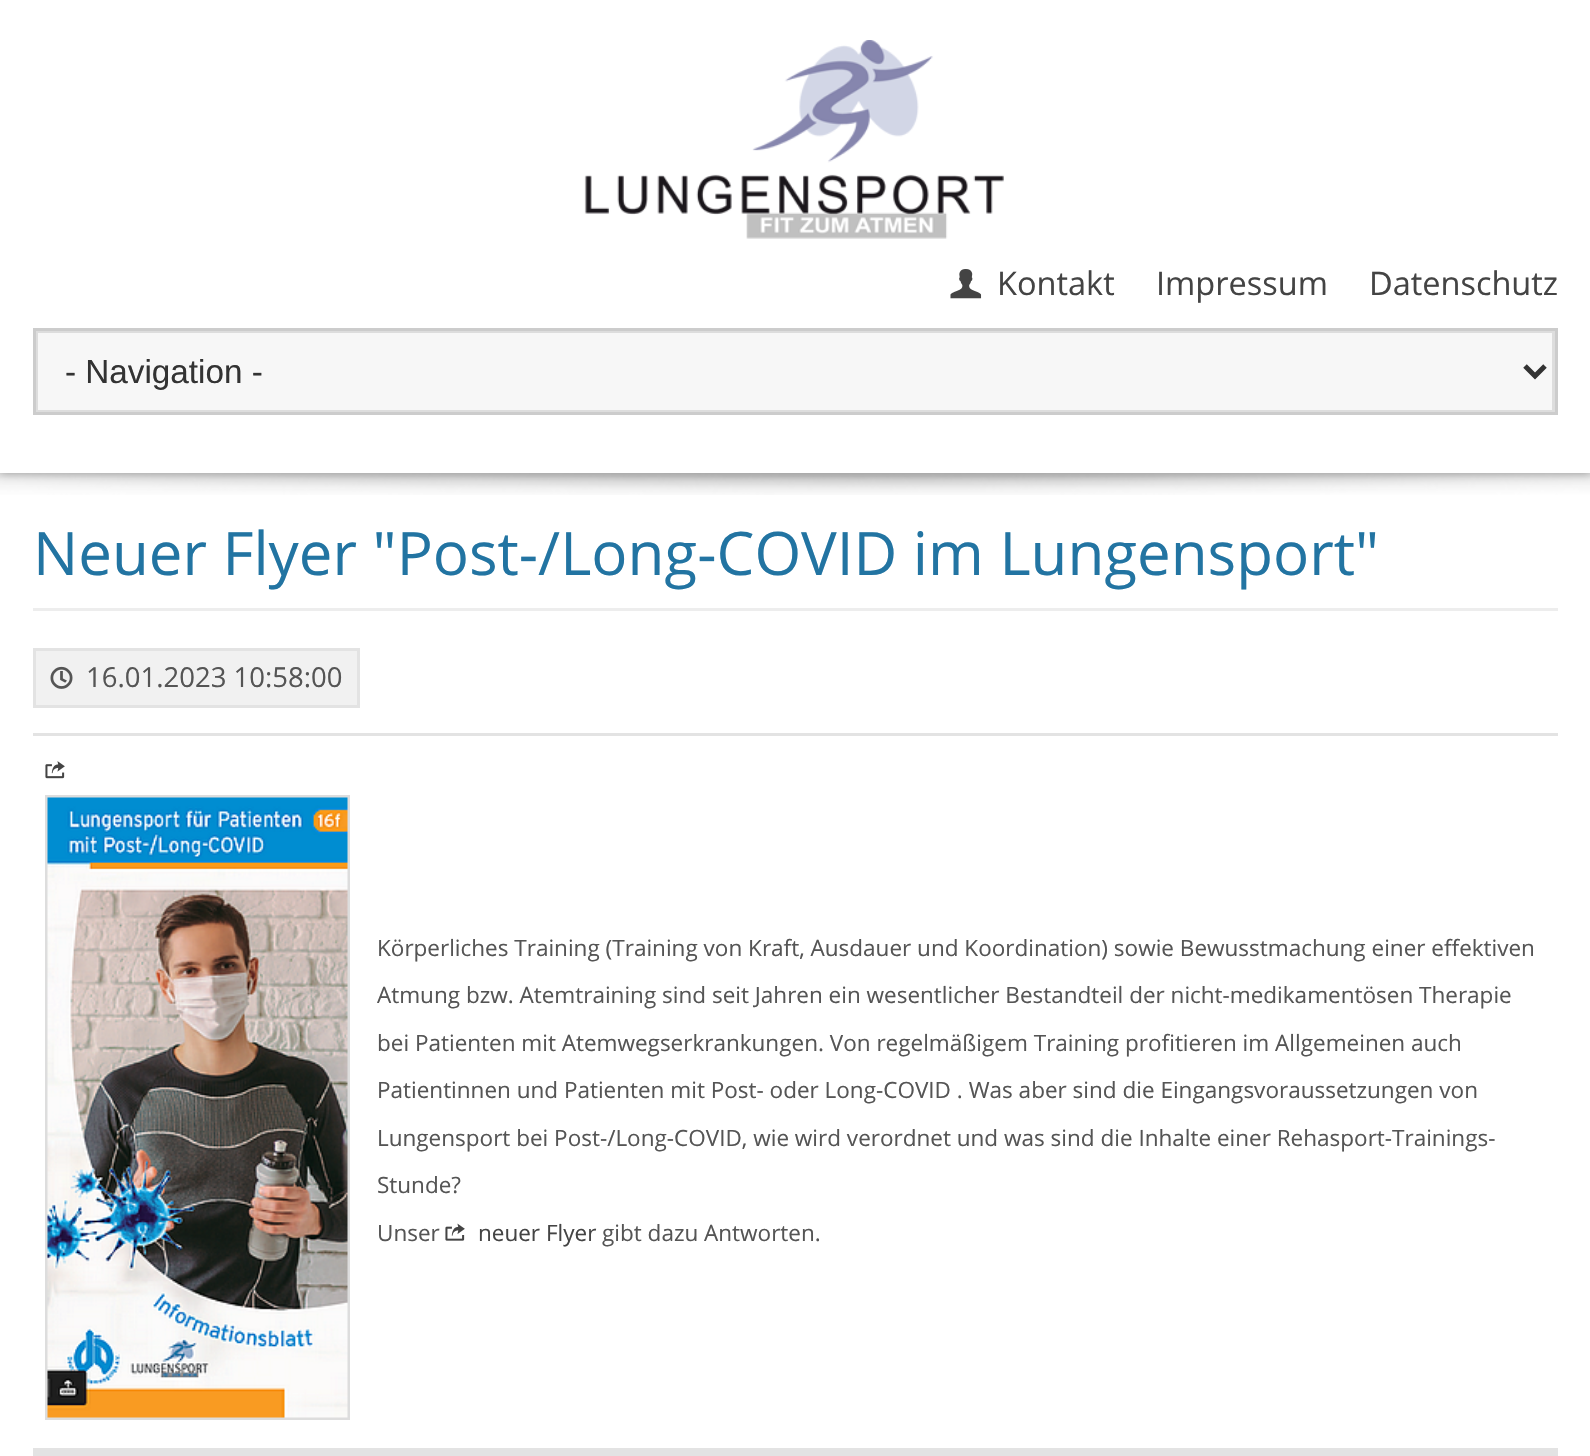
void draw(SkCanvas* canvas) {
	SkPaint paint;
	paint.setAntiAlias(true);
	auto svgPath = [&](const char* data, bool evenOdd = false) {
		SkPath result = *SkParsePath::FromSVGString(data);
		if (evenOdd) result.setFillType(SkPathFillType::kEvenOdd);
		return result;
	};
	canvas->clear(0xffffffff);
	canvas->drawImageRect(SkImages::DeferredFromEncodedData(SkData::MakeFromFileName("img3.png")), SkRect::MakeXYWH(0, 473, 1590, 22), SkSamplingOptions());
	paint.setColor(0xff999999);
	paint.setMaskFilter(SkMaskFilter::MakeBlur(kNormal_SkBlurStyle, 4));
	canvas->drawRect(SkRect::MakeXYWH(0, 0, 1590, 473), paint);
	paint.setMaskFilter(nullptr);
	paint.setColor(0xffffffff);
	canvas->drawRect(SkRect::MakeXYWH(0, 0, 1590, 473), paint);
	canvas->drawImageRect(SkImages::DeferredFromEncodedData(SkData::MakeFromFileName("img1.png")), SkRect::MakeXYWH(584, 40, 420, 199), SkSamplingOptions());
	canvas->drawImageRect(SkImages::DeferredFromEncodedData(SkData::MakeFromFileName("img2.png")), SkRect::MakeXYWH(950, 269, 32, 30), SkSamplingOptions());
	SkFont f1(fontMgr->matchFamilyStyle("Open Sans", SkFontStyle::Normal()), 32.5);
	f1.setSubpixel(true);
	paint.setColor(0xff444444);
	canvas->drawString("Kontakt", 997, 295, f1, paint);
	canvas->drawString("Impressum", 1156, 295, f1, paint);
	canvas->drawString("Datenschutz", 1369, 295, f1, paint);
	paint.setColor(0xfff7f7f7);
	canvas->drawRect(SkRect::MakeXYWH(36.5, 331.5, 1517, 80), paint);
	paint.setStroke(true);
	paint.setStrokeWidth(3);
	paint.setColor(0xffdddddd);
	canvas->drawRect(SkRect::MakeXYWH(36.5, 331.5, 1517, 80), paint);
	paint.setColor(0xffcccccc);
	canvas->drawRect(SkRect::MakeXYWH(34.5, 329.5, 1522, 84), paint);
	paint.setStrokeWidth(5);
	paint.setColor(0xff333333);
	canvas->drawPath(svgPath("M1525 366L1535 376L1545 366"), paint);
	SkFont f2(fontMgr->matchFamilyStyle("Liberation Sans", SkFontStyle::Normal()), 33.25);
	f2.setSubpixel(true);
	paint.setStroke(false);
	canvas->drawString("- Navigation -", 65, 383, f2, paint);
	paint.setColor(0xffededed);
	canvas->drawRect(SkRect::MakeXYWH(33, 608, 1525, 3), paint);
	SkFont f3(fontMgr->matchFamilyStyle("Open Sans", SkFontStyle::Normal()), 60);
	f3.setSubpixel(true);
	paint.setColor(0xff2274a2);
	canvas->drawString("Neuer Flyer \"Post-/Long-COVID im Lungensport\"", 33, 575, f3, paint);
	paint.setColor(0xfff1f1f1);
	canvas->drawRect(SkRect::MakeXYWH(34.5, 649.5, 324, 57), paint);
	paint.setStroke(true);
	paint.setStrokeWidth(3);
	paint.setColor(0xffe3e3e3);
	canvas->drawRect(SkRect::MakeXYWH(34.5, 649.5, 324, 57), paint);
	canvas->drawImageRect(SkImages::DeferredFromEncodedData(SkData::MakeFromFileName("img4.png")), SkRect::MakeXYWH(50, 666, 23, 23), SkSamplingOptions());
	SkFont f4(fontMgr->matchFamilyStyle("Open Sans", SkFontStyle::Normal()), 27.5);
	f4.setSubpixel(true);
	paint.setStroke(false);
	paint.setColor(0xff555555);
	canvas->drawString("16.01.2023 10:58:00", 86, 687, f4, paint);
	paint.setColor(0xffe3e3e3);
	canvas->drawRect(SkRect::MakeXYWH(33, 1448, 1525, 8), paint);
	canvas->drawRect(SkRect::MakeXYWH(33, 733, 1525, 3), paint);
	canvas->drawImageRect(SkImages::DeferredFromEncodedData(SkData::MakeFromFileName("img5.png")), SkRect::MakeXYWH(45, 761, 20, 18), SkSamplingOptions());
	paint.setStroke(true);
	paint.setColor(0xffdddddd);
	canvas->drawRect(SkRect::MakeXYWH(46.5, 796.5, 302, 622), paint);
	canvas->drawImageRect(SkImages::DeferredFromEncodedData(SkData::MakeFromFileName("img6.png")), SkRect::MakeXYWH(47, 797, 301, 621), SkSamplingOptions());
	SkFont f5(fontMgr->matchFamilyStyle("Open Sans", SkFontStyle::Normal()), 22.5);
	f5.setSubpixel(true);
	paint.setStroke(false);
	paint.setColor(0xff555555);
	canvas->drawString("Körperliches Training (Training von Kraft, Ausdauer und Koordination) sowie Bewusstmachung einer effektiven", 377, 956, f5, paint);
	canvas->drawString("Atmung bzw. Atemtraining sind seit Jahren ein wesentlicher Bestandteil der nicht-medikamentösen Therapie", 377, 1003, f5, paint);
	canvas->drawString("bei Patienten mit Atemwegserkrankungen. Von regelmäßigem Training profitieren im Allgemeinen auch", 377, 1051, f5, paint);
	canvas->drawString("Patientinnen und Patienten mit Post- oder Long-COVID . Was aber sind die Eingangsvoraussetzungen von", 377, 1098, f5, paint);
	canvas->drawString("Lungensport bei Post-/Long-COVID, wie wird verordnet und was sind die Inhalte einer Rehasport-Trainings-", 377, 1146, f5, paint);
	canvas->drawString("Stunde?", 377, 1193, f5, paint);
	canvas->drawString("Unser", 377, 1241, f5, paint);
	canvas->drawImageRect(SkImages::DeferredFromEncodedData(SkData::MakeFromFileName("img7.png")), SkRect::MakeXYWH(445, 1223, 20, 18), SkSamplingOptions());
	paint.setColor(0xff444444);
	canvas->drawString("neuer Flyer", 478, 1241, f5, paint);
	paint.setColor(0xff555555);
	canvas->drawString("gibt dazu Antworten.", 602, 1241, f5, paint);
}
